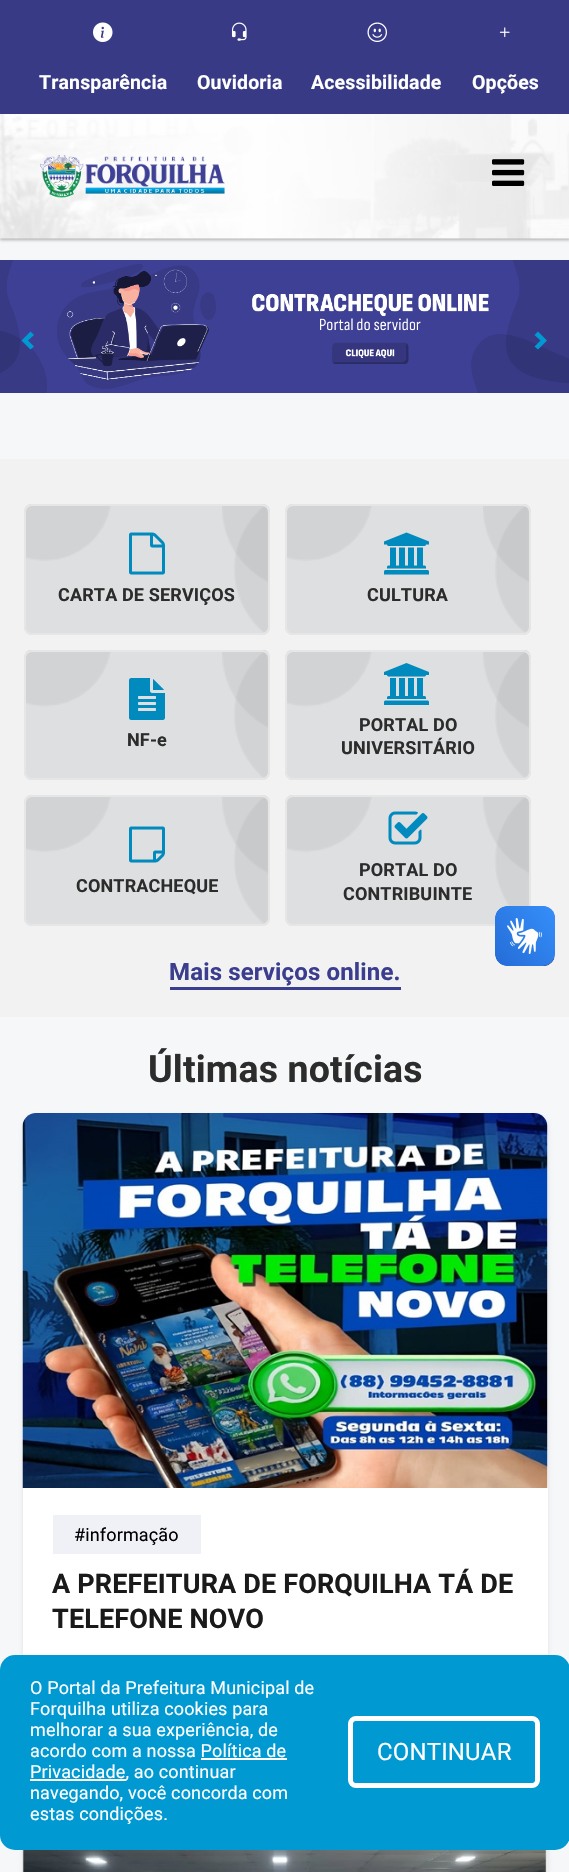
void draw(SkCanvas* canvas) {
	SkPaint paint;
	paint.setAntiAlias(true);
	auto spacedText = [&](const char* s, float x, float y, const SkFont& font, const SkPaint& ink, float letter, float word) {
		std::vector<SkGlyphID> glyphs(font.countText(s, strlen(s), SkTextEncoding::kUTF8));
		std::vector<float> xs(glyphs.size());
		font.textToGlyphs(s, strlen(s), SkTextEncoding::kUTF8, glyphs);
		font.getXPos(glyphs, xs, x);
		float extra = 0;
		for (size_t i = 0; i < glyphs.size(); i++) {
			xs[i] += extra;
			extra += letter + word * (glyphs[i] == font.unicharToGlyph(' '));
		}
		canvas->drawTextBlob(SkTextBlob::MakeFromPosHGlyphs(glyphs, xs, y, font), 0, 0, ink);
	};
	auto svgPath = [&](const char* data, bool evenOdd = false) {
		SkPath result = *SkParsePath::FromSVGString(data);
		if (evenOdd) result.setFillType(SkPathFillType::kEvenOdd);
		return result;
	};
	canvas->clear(0xfff6f7f8);
	paint.setColor(0x4d000000);
	paint.setMaskFilter(SkMaskFilter::MakeBlur(kNormal_SkBlurStyle, 1.5));
	canvas->drawRect(SkRect::MakeXYWH(0, 2, 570, 238), paint);
	paint.setMaskFilter(nullptr);
	canvas->drawImageRect(SkImages::DeferredFromEncodedData(SkData::MakeFromFileName("img1.png")), SkRect::MakeXYWH(0, 114, 569, 125), SkSamplingOptions());
	paint.setColor(0xff383a86);
	canvas->drawRect(SkRect::MakeXYWH(0, 0, 569, 114), paint);
	canvas->drawImageRect(SkImages::DeferredFromEncodedData(SkData::MakeFromFileName("img2.png")), SkRect::MakeXYWH(93, 22, 20, 20), SkSamplingOptions());
	SkFont f1(fontMgr->matchFamilyStyle("Roboto", SkFontStyle::Bold()), 19.5);
	f1.setSubpixel(true);
	paint.setColor(0xffffffff);
	spacedText("Transparência", 39, 89, f1, paint, 0.15, 0);
	canvas->drawImageRect(SkImages::DeferredFromEncodedData(SkData::MakeFromFileName("img3.png")), SkRect::MakeXYWH(231, 22, 16, 19), SkSamplingOptions());
	spacedText("Ouvidoria", 197, 89, f1, paint, 0.15, 0);
	canvas->drawImageRect(SkImages::DeferredFromEncodedData(SkData::MakeFromFileName("img4.png")), SkRect::MakeXYWH(367, 22, 20, 20), SkSamplingOptions());
	spacedText("Acessibilidade", 311, 89, f1, paint, 0.15, 0);
	canvas->drawImageRect(SkImages::DeferredFromEncodedData(SkData::MakeFromFileName("img5.png")), SkRect::MakeXYWH(499, 27, 11, 11), SkSamplingOptions());
	spacedText("Opções", 472, 89, f1, paint, 0.15, 0);
	canvas->drawImageRect(SkImages::DeferredFromEncodedData(SkData::MakeFromFileName("img6.png")), SkRect::MakeXYWH(39, 155, 186, 43), SkSamplingOptions());
	canvas->drawImageRect(SkImages::DeferredFromEncodedData(SkData::MakeFromFileName("img7.png")), SkRect::MakeXYWH(492, 159, 33, 27), SkSamplingOptions());
	paint.setColor(0xff3e4095);
	canvas->drawRect(SkRect::MakeXYWH(0, 260, 569, 133), paint);
	canvas->drawImageRect(SkImages::DeferredFromEncodedData(SkData::MakeFromFileName("img8.png")), SkRect::MakeXYWH(0, 260, 569, 133), SkSamplingOptions());
	paint.setColor(0xff0099d2);
	canvas->drawPath(svgPath("M34 335L28 340.5L34 346.5L30.5 349.5L21.5 340.5L30.5 331.5Z"), paint);
	canvas->drawPath(svgPath("M547 340.5L538 349.5L534.5 346.5L540.5 340.5L534.5 335L538 331.5Z"), paint);
	paint.setColor(0xfff2f2f2);
	canvas->drawRect(SkRect::MakeXYWH(0, 459, 569, 558), paint);
	paint.setColor(0xffdedfe0);
	canvas->drawRoundRect(SkRect::MakeXYWH(24, 504, 246, 131), 8, 8, paint);
	canvas->drawImageRect(SkImages::DeferredFromEncodedData(SkData::MakeFromFileName("img9.png")), SkRect::MakeXYWH(25, 504, 244, 130), SkSamplingOptions());
	paint.setStroke(true);
	paint.setStrokeWidth(2);
	paint.setColor(0xffe6e6e6);
	canvas->drawRoundRect(SkRect::MakeXYWH(25, 505, 244, 129), 7, 7, paint);
	canvas->drawImageRect(SkImages::DeferredFromEncodedData(SkData::MakeFromFileName("img10.png")), SkRect::MakeXYWH(129, 532, 36, 43), SkSamplingOptions());
	SkFont f2(fontMgr->matchFamilyStyle("Roboto", SkFontStyle::Bold()), 18);
	f2.setSubpixel(true);
	paint.setStroke(false);
	paint.setColor(0xff2c2c2c);
	spacedText("CARTA DE SERVIÇOS", 58, 601, f2, paint, 0.15, 0);
	paint.setColor(0xffdedfe0);
	canvas->drawRoundRect(SkRect::MakeXYWH(285, 504, 246, 131), 8, 8, paint);
	canvas->drawImageRect(SkImages::DeferredFromEncodedData(SkData::MakeFromFileName("img9.png")), SkRect::MakeXYWH(286, 504, 244, 130), SkSamplingOptions());
	paint.setStroke(true);
	paint.setColor(0xffe6e6e6);
	canvas->drawRoundRect(SkRect::MakeXYWH(286, 505, 244, 129), 7, 7, paint);
	canvas->drawImageRect(SkImages::DeferredFromEncodedData(SkData::MakeFromFileName("img11.png")), SkRect::MakeXYWH(384, 532, 45, 43), SkSamplingOptions());
	paint.setStroke(false);
	paint.setColor(0xff2c2c2c);
	spacedText("CULTURA", 367, 601, f2, paint, 0.15, 0);
	paint.setColor(0xffdedfe0);
	canvas->drawRoundRect(SkRect::MakeXYWH(24, 650, 246, 130), 8, 8, paint);
	canvas->drawImageRect(SkImages::DeferredFromEncodedData(SkData::MakeFromFileName("img12.png")), SkRect::MakeXYWH(25, 650, 244, 129), SkSamplingOptions());
	paint.setStroke(true);
	paint.setColor(0xffe6e6e6);
	canvas->drawRoundRect(SkRect::MakeXYWH(25, 651, 244, 128), 7, 7, paint);
	canvas->drawImageRect(SkImages::DeferredFromEncodedData(SkData::MakeFromFileName("img13.png")), SkRect::MakeXYWH(129, 678, 36, 42), SkSamplingOptions());
	paint.setStroke(false);
	paint.setColor(0xff2c2c2c);
	spacedText("NF-e", 127, 746, f2, paint, 0.15, 0);
	paint.setColor(0xffdedfe0);
	canvas->drawRoundRect(SkRect::MakeXYWH(285, 650, 246, 130), 8, 8, paint);
	canvas->drawImageRect(SkImages::DeferredFromEncodedData(SkData::MakeFromFileName("img12.png")), SkRect::MakeXYWH(286, 650, 244, 129), SkSamplingOptions());
	paint.setStroke(true);
	paint.setColor(0xffe6e6e6);
	canvas->drawRoundRect(SkRect::MakeXYWH(286, 651, 244, 128), 7, 7, paint);
	canvas->drawImageRect(SkImages::DeferredFromEncodedData(SkData::MakeFromFileName("img14.png")), SkRect::MakeXYWH(384, 663, 45, 42), SkSamplingOptions());
	paint.setStroke(false);
	paint.setColor(0xff2c2c2c);
	spacedText("PORTAL DO", 359, 731, f2, paint, 0.15, 0);
	spacedText("UNIVERSITÁRIO", 341, 754, f2, paint, 0.15, 0);
	paint.setColor(0xffdedfe0);
	canvas->drawRoundRect(SkRect::MakeXYWH(24, 795, 246, 131), 8, 8, paint);
	canvas->drawImageRect(SkImages::DeferredFromEncodedData(SkData::MakeFromFileName("img9.png")), SkRect::MakeXYWH(25, 795, 244, 130), SkSamplingOptions());
	paint.setStroke(true);
	paint.setColor(0xffe6e6e6);
	canvas->drawRoundRect(SkRect::MakeXYWH(25, 796, 244, 129), 7, 7, paint);
	canvas->drawImageRect(SkImages::DeferredFromEncodedData(SkData::MakeFromFileName("img15.png")), SkRect::MakeXYWH(129, 826, 36, 37), SkSamplingOptions());
	paint.setStroke(false);
	paint.setColor(0xff2c2c2c);
	spacedText("CONTRACHEQUE", 76, 892, f2, paint, 0.15, 0);
	paint.setColor(0xffdedfe0);
	canvas->drawRoundRect(SkRect::MakeXYWH(285, 795, 246, 131), 8, 8, paint);
	canvas->drawImageRect(SkImages::DeferredFromEncodedData(SkData::MakeFromFileName("img16.png")), SkRect::MakeXYWH(286, 795, 244, 111), SkSamplingOptions());
	paint.setStroke(true);
	paint.setColor(0xffe6e6e6);
	canvas->drawRoundRect(SkRect::MakeXYWH(286, 796, 244, 129), 7, 7, paint);
	canvas->drawImageRect(SkImages::DeferredFromEncodedData(SkData::MakeFromFileName("img17.png")), SkRect::MakeXYWH(388, 811, 40, 34), SkSamplingOptions());
	paint.setStroke(false);
	paint.setColor(0xff2c2c2c);
	spacedText("PORTAL DO", 359, 876, f2, paint, 0.15, 0);
	spacedText("CONTRIBUINTE", 343, 900, f2, paint, 0.15, 0);
	SkFont f3(fontMgr->matchFamilyStyle("Roboto", SkFontStyle::Bold()), 24);
	f3.setSubpixel(true);
	paint.setColor(0xff3b3d8e);
	spacedText("Mais serviços online.", 169, 980, f3, paint, 0.15, 0);
	canvas->drawRect(SkRect::MakeXYWH(170, 987, 231, 3), paint);
	canvas->drawImageRect(SkImages::DeferredFromEncodedData(SkData::MakeFromFileName("img18.png")), SkRect::MakeXYWH(495, 906, 60, 60), SkSamplingOptions());
	canvas->drawImageRect(SkImages::DeferredFromEncodedData(SkData::MakeFromFileName("img19.png")), SkRect::MakeXYWH(495, 906, 60, 60), SkSamplingOptions());
	SkFont f4(fontMgr->matchFamilyStyle("Roboto", SkFontStyle::Bold()), 37.5);
	f4.setSubpixel(true);
	paint.setColor(0xff2c2c2c);
	spacedText("Últimas notícias", 148, 1082, f4, paint, 0.15, 0);
	paint.setColor(0x17030047);
	paint.setMaskFilter(SkMaskFilter::MakeBlur(kNormal_SkBlurStyle, 2));
	canvas->drawRoundRect(SkRect::MakeXYWH(23, 1115, 525, 637), 14, 14, paint);
	paint.setMaskFilter(nullptr);
	paint.setColor(0xffffffff);
	canvas->drawRoundRect(SkRect::MakeXYWH(23, 1113, 525, 638), 14, 14, paint);
	canvas->drawImageRect(SkImages::DeferredFromEncodedData(SkData::MakeFromFileName("img20.png")), SkRect::MakeXYWH(22, 1113, 526, 375), SkSamplingOptions());
	paint.setColor(0xfff0f0f7);
	canvas->drawRect(SkRect::MakeXYWH(53, 1515, 148, 39), paint);
	SkFont f5(fontMgr->matchFamilyStyle("Roboto", SkFontStyle::Normal()), 18);
	f5.setSubpixel(true);
	paint.setColor(0xff000000);
	spacedText("#informação", 74, 1541, f5, paint, 0.15, 0);
	SkFont f6(fontMgr->matchFamilyStyle("Roboto", SkFontStyle::Bold()), 27);
	f6.setSubpixel(true);
	paint.setColor(0xff1a1a1a);
	spacedText("A PREFEITURA DE FORQUILHA TÁ DE", 52, 1593, f6, paint, 0.15, 0);
	spacedText("TELEFONE NOVO", 52, 1628, f6, paint, 0.15, 0);
	paint.setColor(0x17030047);
	paint.setMaskFilter(SkMaskFilter::MakeBlur(kNormal_SkBlurStyle, 2));
	canvas->drawRoundRect(SkRect::MakeXYWH(23, 1767, 525, 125), 14, 14, paint);
	paint.setMaskFilter(nullptr);
	paint.setColor(0xffffffff);
	canvas->drawRect(SkRect::MakeXYWH(547, 1850, 1, 22), paint);
	canvas->drawImageRect(SkImages::DeferredFromEncodedData(SkData::MakeFromFileName("img21.png")), SkRect::MakeXYWH(22, 1850, 526, 22), SkSamplingOptions());
	paint.setColor(0xff0099d2);
	canvas->drawRoundRect(SkRect::MakeXYWH(0, 1655, 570, 195), 15, 15, paint);
	paint.setColor(0xffffffff);
	spacedText("O Portal da Prefeitura Municipal de", 30, 1694, f5, paint, 0.15, 0);
	spacedText("Forquilha utiliza cookies para", 30, 1715, f5, paint, 0.15, 0);
	spacedText("melhorar a sua experiência, de", 30, 1736, f5, paint, 0.15, 0);
	spacedText("acordo com a nossa Política de", 30, 1757, f5, paint, 0.15, 0);
	canvas->drawRect(SkRect::MakeXYWH(30, 1779, 96, 2), paint);
	spacedText("Privacidade, ao continuar", 30, 1778, f5, paint, 0.15, 0);
	canvas->drawRect(SkRect::MakeXYWH(201, 1758, 86, 2), paint);
	spacedText("navegando, você concorda com", 30, 1799, f5, paint, 0.15, 0);
	spacedText("estas condições.", 30, 1820, f5, paint, 0.15, 0);
	paint.setStroke(true);
	paint.setStrokeWidth(5);
	canvas->drawRoundRect(SkRect::MakeXYWH(350.5, 1718.5, 187, 67), 5.5, 5.5, paint);
	SkFont f7(fontMgr->matchFamilyStyle("Roboto", SkFontStyle::Normal()), 24);
	f7.setSubpixel(true);
	paint.setStroke(false);
	spacedText("CONTINUAR", 377, 1760, f7, paint, 0.15, 0);
}
